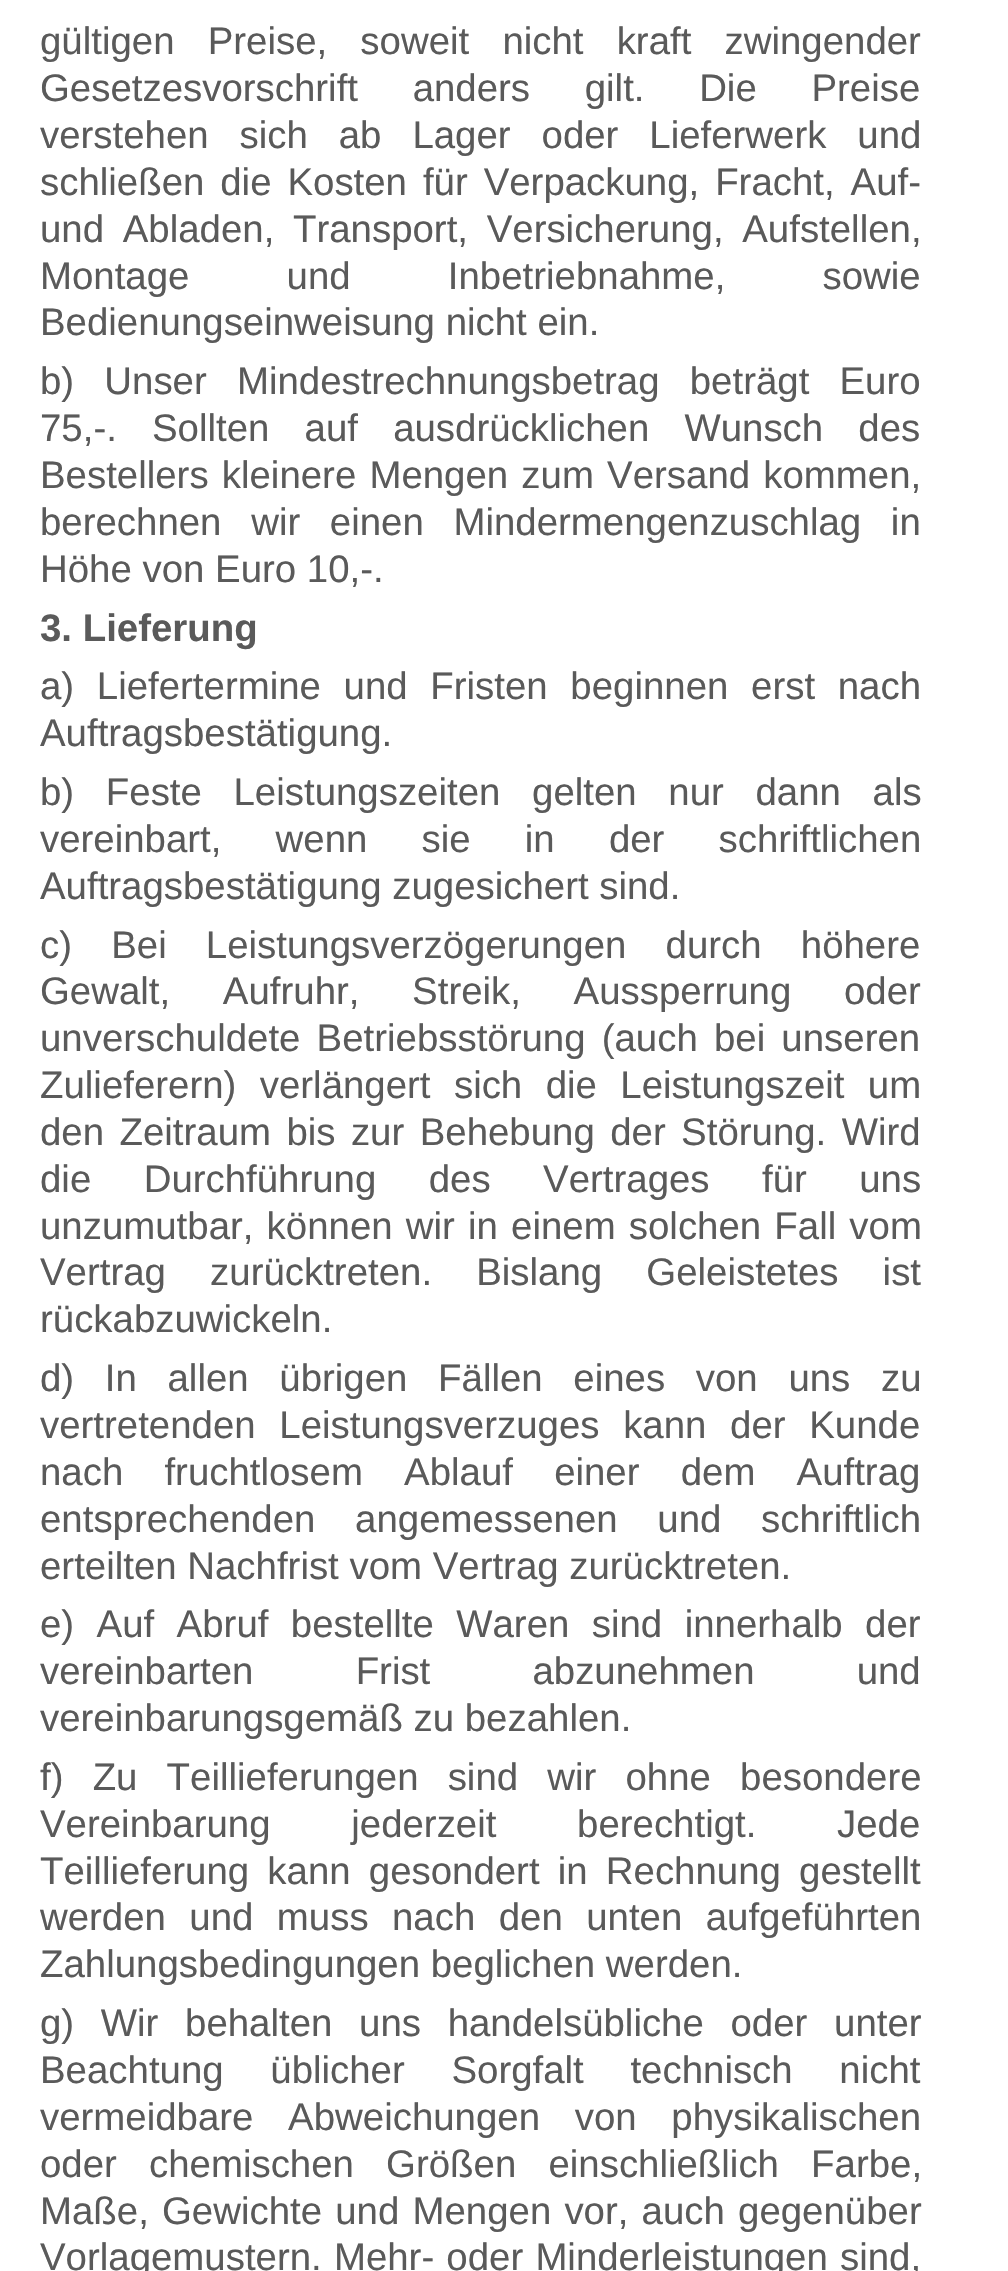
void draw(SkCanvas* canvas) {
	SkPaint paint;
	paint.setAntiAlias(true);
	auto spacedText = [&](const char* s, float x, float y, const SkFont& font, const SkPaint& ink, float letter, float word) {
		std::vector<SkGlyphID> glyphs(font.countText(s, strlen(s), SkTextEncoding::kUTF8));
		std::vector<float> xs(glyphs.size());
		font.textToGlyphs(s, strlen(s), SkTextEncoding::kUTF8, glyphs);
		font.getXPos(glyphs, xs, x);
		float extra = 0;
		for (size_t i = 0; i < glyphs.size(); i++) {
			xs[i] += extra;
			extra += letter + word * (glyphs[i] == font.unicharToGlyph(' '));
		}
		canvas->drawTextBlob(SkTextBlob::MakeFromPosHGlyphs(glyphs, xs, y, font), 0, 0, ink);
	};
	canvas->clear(0xffffffff);
	SkFont f1(fontMgr->matchFamilyStyle("Liberation Sans", SkFontStyle::Normal()), 38.4);
	f1.setSubpixel(true);
	paint.setColor(0xff5a5a5a);
	spacedText("gültigen Preise, soweit nicht kraft zwingender", 40, 54, f1, paint, 0, 22.5);
	spacedText("Gesetzesvorschrift anders gilt. Die Preise", 40, 101, f1, paint, 0, 44);
	spacedText("verstehen sich ab Lager oder Lieferwerk und", 40, 148, f1, paint, 0, 20.25);
	spacedText("schließen die Kosten für Verpackung, Fracht, Auf-", 40, 195, f1, paint, 0, 5.25);
	spacedText("und Abladen, Transport, Versicherung, Aufstellen,", 40, 242, f1, paint, 0, 8);
	spacedText("Montage und Inbetriebnahme, sowie", 40, 289, f1, paint, 0, 86.5);
	canvas->drawString("Bedienungseinweisung nicht ein.", 40, 335, f1, paint);
	spacedText("b) Unser Mindestrechnungsbetrag beträgt Euro", 40, 394, f1, paint, 0, 19.5);
	spacedText("75,-. Sollten auf ausdrücklichen Wunsch des", 40, 441, f1, paint, 0, 24.5);
	spacedText("Bestellers kleinere Mengen zum Versand kommen,", 40, 488, f1, paint, 0, 2.5);
	spacedText("berechnen wir einen Mindermengenzuschlag in", 40, 535, f1, paint, 0, 19);
	canvas->drawString("Höhe von Euro 10,-.", 40, 582, f1, paint);
	SkFont f2(fontMgr->matchFamilyStyle("Liberation Sans", SkFontStyle::Bold()), 38.4);
	f2.setSubpixel(true);
	canvas->drawString("3. Lieferung", 40, 641, f2, paint);
	spacedText("a) Liefertermine und Fristen beginnen erst nach", 40, 699, f1, paint, 0, 12);
	canvas->drawString("Auftragsbestätigung.", 40, 746, f1, paint);
	spacedText("b) Feste Leistungszeiten gelten nur dann als", 40, 805, f1, paint, 0, 21);
	spacedText("vereinbart, wenn sie in der schriftlichen", 40, 852, f1, paint, 0, 43.5);
	canvas->drawString("Auftragsbestätigung zugesichert sind.", 40, 899, f1, paint);
	spacedText("c) Bei Leistungsverzögerungen durch höhere", 40, 958, f1, paint, 0, 28.5);
	spacedText("Gewalt, Aufruhr, Streik, Aussperrung oder", 40, 1004, f1, paint, 0, 42);
	spacedText("unverschuldete Betriebsstörung (auch bei unseren", 40, 1051, f1, paint, 0, 5.5);
	spacedText("Zulieferern) verlängert sich die Leistungszeit um", 40, 1098, f1, paint, 0, 12.75);
	spacedText("den Zeitraum bis zur Behebung der Störung. Wird", 40, 1145, f1, paint, 0, 4.75);
	spacedText("die Durchführung des Vertrages für uns", 40, 1192, f1, paint, 0, 41.75);
	spacedText("unzumutbar, können wir in einem solchen Fall vom", 40, 1239, f1, paint, 0, 2.5);
	spacedText("Vertrag zurücktreten. Bislang Geleistetes ist", 40, 1285, f1, paint, 0, 33.5);
	canvas->drawString("rückabzuwickeln.", 40, 1332, f1, paint);
	spacedText("d) In allen übrigen Fällen eines von uns zu", 40, 1391, f1, paint, 0, 20);
	spacedText("vertretenden Leistungsverzuges kann der Kunde", 40, 1438, f1, paint, 0, 13);
	spacedText("nach fruchtlosem Ablauf einer dem Auftrag", 40, 1485, f1, paint, 0, 30.5);
	spacedText("entsprechenden angemessenen und schriftlich", 40, 1532, f1, paint, 0, 29);
	canvas->drawString("erteilten Nachfrist vom Vertrag zurücktreten.", 40, 1579, f1, paint);
	spacedText("e) Auf Abruf bestellte Waren sind innerhalb der", 40, 1637, f1, paint, 0, 11.75);
	spacedText("vereinbarten Frist abzunehmen und", 40, 1684, f1, paint, 0, 91.5);
	canvas->drawString("vereinbarungsgemäß zu bezahlen.", 40, 1731, f1, paint);
	spacedText("f) Zu Teillieferungen sind wir ohne besondere", 40, 1790, f1, paint, 0, 18.5);
	spacedText("Vereinbarung jederzeit berechtigt. Jede", 40, 1837, f1, paint, 0, 70);
	spacedText("Teillieferung kann gesondert in Rechnung gestellt", 40, 1884, f1, paint, 0, 7.5);
	spacedText("werden und muss nach den unten aufgeführten", 40, 1930, f1, paint, 0, 12.75);
	canvas->drawString("Zahlungsbedingungen beglichen werden.", 40, 1977, f1, paint);
	spacedText("g) Wir behalten uns handelsübliche oder unter", 40, 2036, f1, paint, 0, 16);
	spacedText("Beachtung üblicher Sorgfalt technisch nicht", 40, 2083, f1, paint, 0, 36);
	spacedText("vermeidbare Abweichungen von physikalischen", 40, 2130, f1, paint, 0, 24);
	spacedText("oder chemischen Größen einschließlich Farbe,", 40, 2177, f1, paint, 0, 21.5);
	spacedText("Maße, Gewichte und Mengen vor, auch gegenüber", 40, 2224, f1, paint, 0, 2.5);
	spacedText("Vorlagemustern. Mehr- oder Minderleistungen sind,", 40, 2270, f1, paint, 0, 1.5);
}
